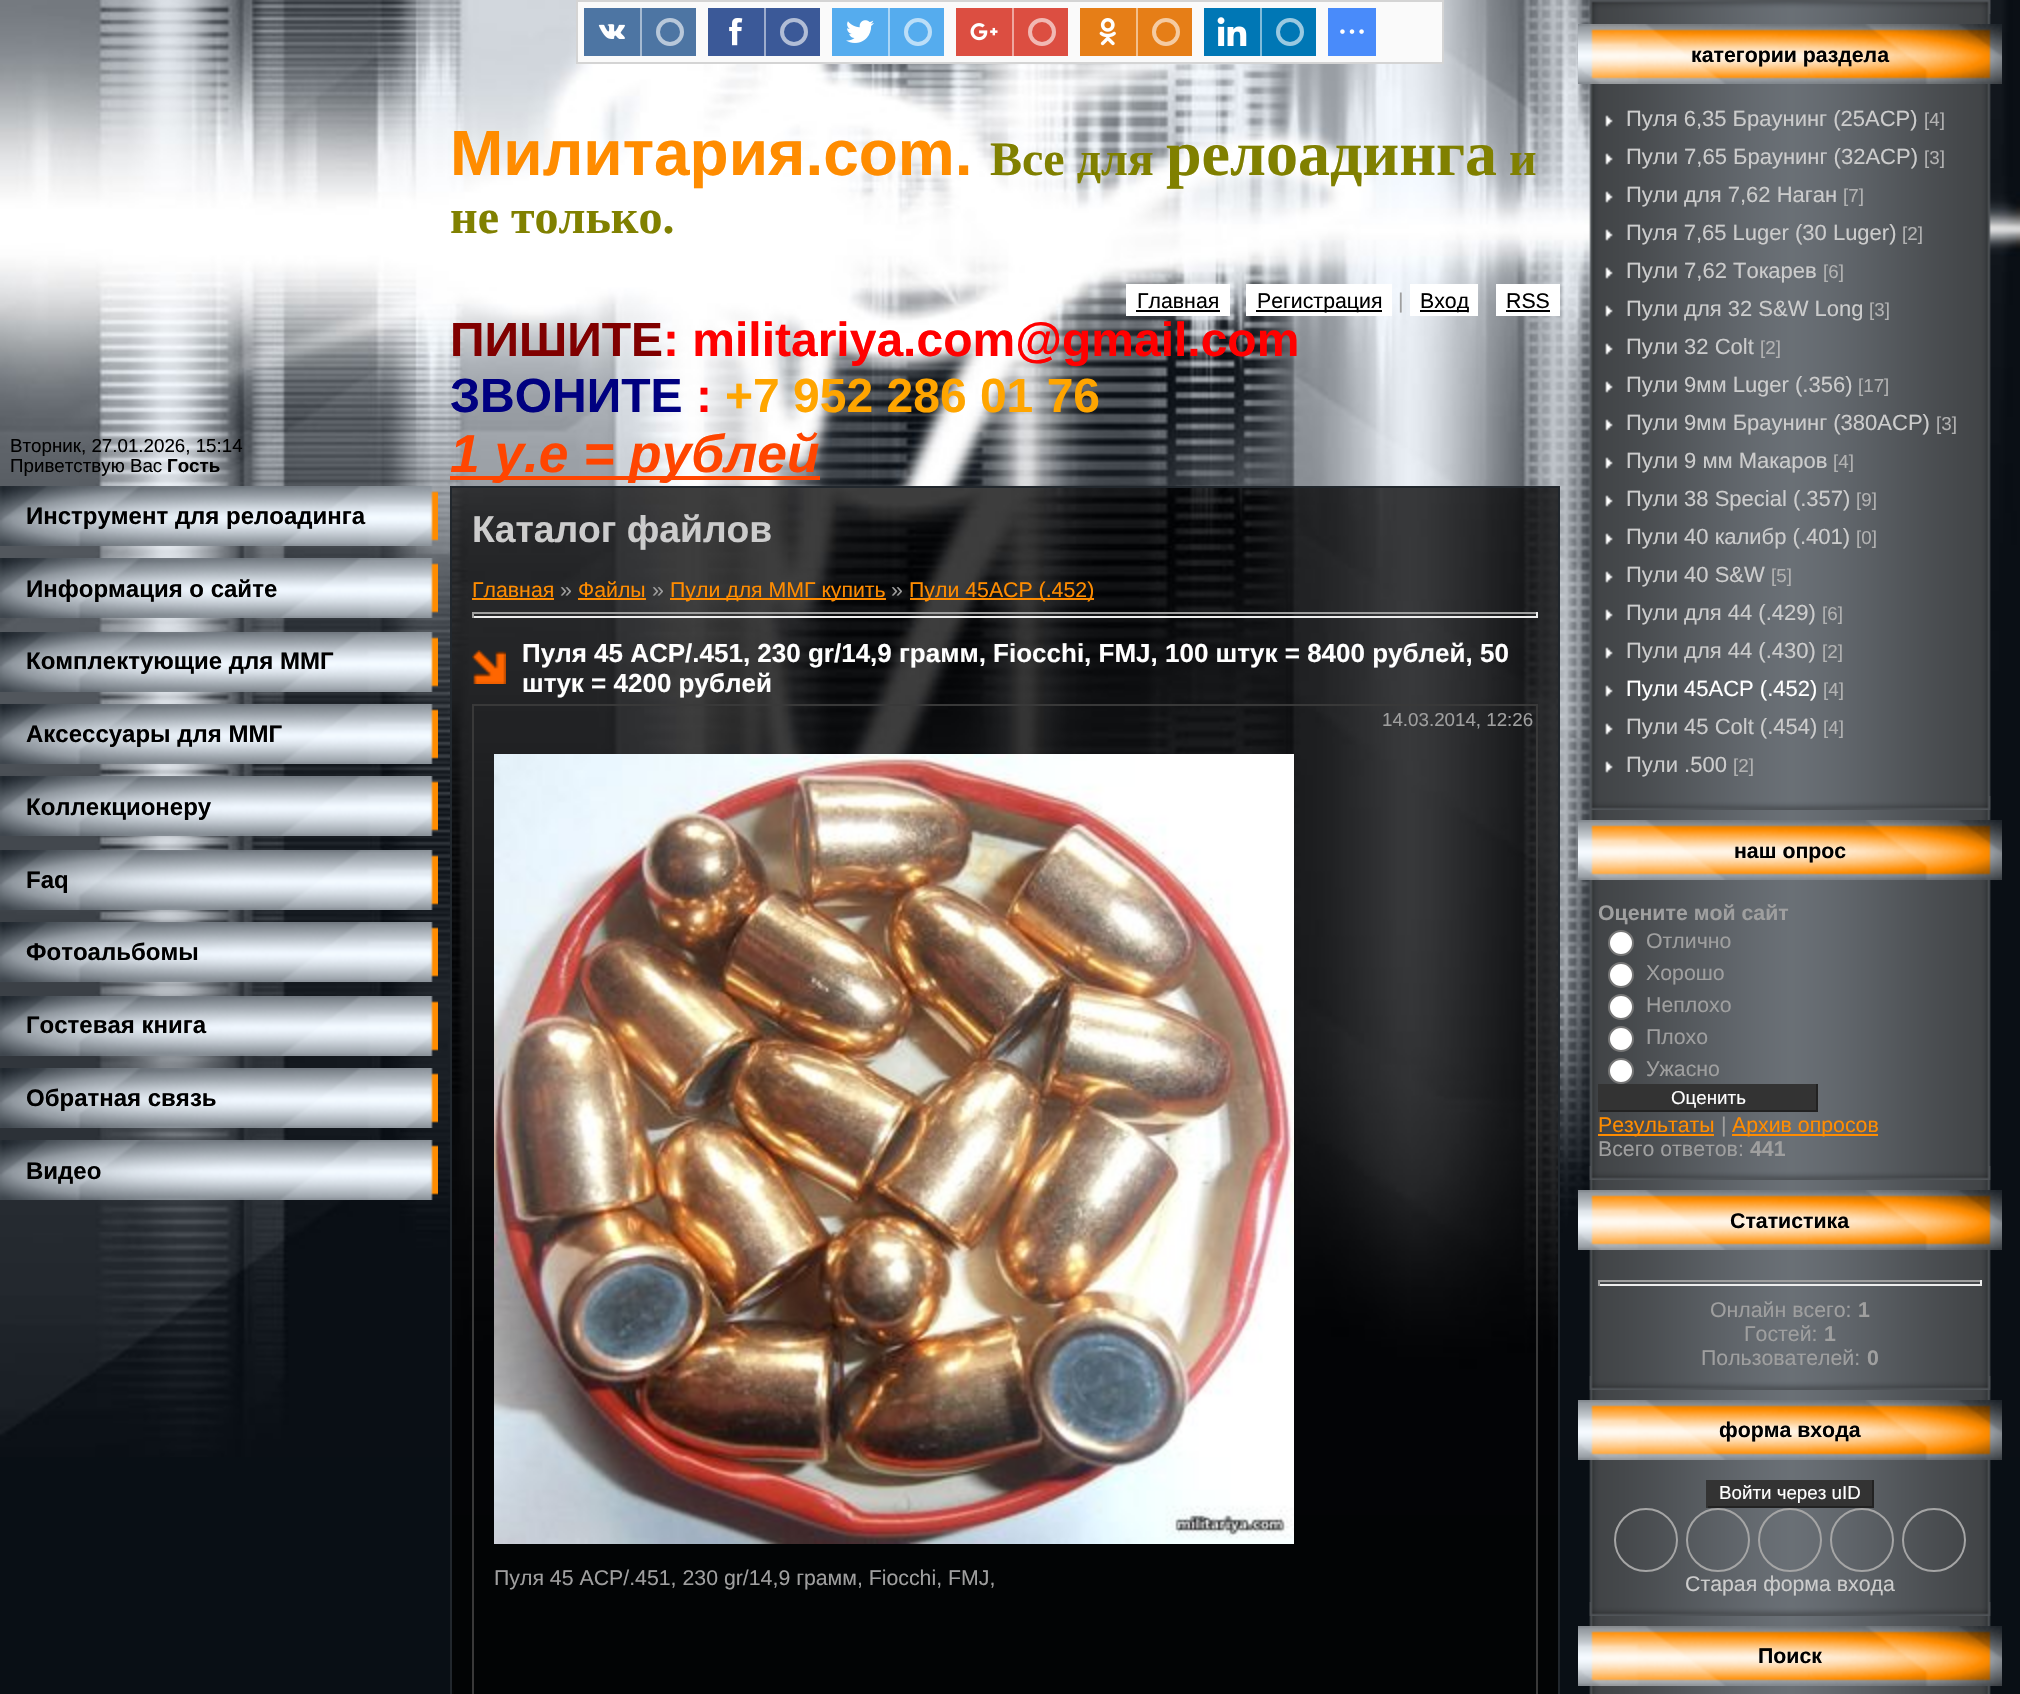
void draw(SkCanvas* canvas) {
	SkPaint paint;
	paint.setAntiAlias(true);
	canvas->clear(0xff090f15);
	canvas->drawImageRect(SkImages::DeferredFromEncodedData(SkData::MakeFromFileName("img8.png")), SkRect::MakeXYWH(0, 0, 2020, 1457), SkSamplingOptions());
	paint.setColor(0xfffafafa);
	canvas->drawRect(SkRect::MakeXYWH(577, 1, 866, 62), paint);
	paint.setStroke(true);
	paint.setStrokeWidth(2);
	paint.setColor(0xffd4d4d4);
	canvas->drawRect(SkRect::MakeXYWH(577, 1, 866, 62), paint);
	paint.setStroke(false);
	paint.setColor(0xff4d75a3);
	canvas->drawRect(SkRect::MakeXYWH(584, 8, 112, 48), paint);
	canvas->drawImageRect(SkImages::DeferredFromEncodedData(SkData::MakeFromFileName("img1.png")), SkRect::MakeXYWH(598, 24, 27, 15), SkSamplingOptions());
	paint.setColor(0xffa6bad1);
	canvas->drawRect(SkRect::MakeXYWH(640, 8, 2, 48), paint);
	paint.setStroke(true);
	paint.setStrokeWidth(4);
	paint.setColor(0xffb8c8da);
	canvas->drawCircle(670, 32, 12, paint);
	paint.setStroke(false);
	paint.setColor(0xff3b5998);
	canvas->drawRect(SkRect::MakeXYWH(708, 8, 112, 48), paint);
	canvas->drawImageRect(SkImages::DeferredFromEncodedData(SkData::MakeFromFileName("img2.png")), SkRect::MakeXYWH(729, 18, 14, 28), SkSamplingOptions());
	paint.setColor(0xff9daccc);
	canvas->drawRect(SkRect::MakeXYWH(764, 8, 2, 48), paint);
	paint.setStroke(true);
	paint.setColor(0xffb1bdd6);
	canvas->drawCircle(794, 32, 12, paint);
	paint.setStroke(false);
	paint.setColor(0xff55acee);
	canvas->drawRect(SkRect::MakeXYWH(832, 8, 112, 48), paint);
	canvas->drawImageRect(SkImages::DeferredFromEncodedData(SkData::MakeFromFileName("img3.png")), SkRect::MakeXYWH(846, 20, 28, 23), SkSamplingOptions());
	paint.setColor(0xffaad6f7);
	canvas->drawRect(SkRect::MakeXYWH(888, 8, 2, 48), paint);
	paint.setStroke(true);
	paint.setColor(0xffbbdef8);
	canvas->drawCircle(918, 32, 12, paint);
	paint.setStroke(false);
	paint.setColor(0xffdc4e41);
	canvas->drawRect(SkRect::MakeXYWH(956, 8, 112, 48), paint);
	canvas->drawImageRect(SkImages::DeferredFromEncodedData(SkData::MakeFromFileName("img4.png")), SkRect::MakeXYWH(970, 23, 28, 18), SkSamplingOptions());
	paint.setColor(0xffeea7a0);
	canvas->drawRect(SkRect::MakeXYWH(1012, 8, 2, 48), paint);
	paint.setStroke(true);
	paint.setColor(0xfff1b8b3);
	canvas->drawCircle(1042, 32, 12, paint);
	paint.setStroke(false);
	paint.setColor(0xffe67e17);
	canvas->drawRect(SkRect::MakeXYWH(1080, 8, 112, 48), paint);
	canvas->drawImageRect(SkImages::DeferredFromEncodedData(SkData::MakeFromFileName("img5.png")), SkRect::MakeXYWH(1099, 18, 17, 28), SkSamplingOptions());
	paint.setColor(0xfff3bf8b);
	canvas->drawRect(SkRect::MakeXYWH(1136, 8, 2, 48), paint);
	paint.setStroke(true);
	paint.setColor(0xfff5cba2);
	canvas->drawCircle(1166, 32, 12, paint);
	paint.setStroke(false);
	paint.setColor(0xff0077b5);
	canvas->drawRect(SkRect::MakeXYWH(1204, 8, 112, 48), paint);
	canvas->drawImageRect(SkImages::DeferredFromEncodedData(SkData::MakeFromFileName("img6.png")), SkRect::MakeXYWH(1217, 17, 30, 29), SkSamplingOptions());
	paint.setColor(0xff80bbda);
	canvas->drawRect(SkRect::MakeXYWH(1260, 8, 2, 48), paint);
	paint.setStroke(true);
	paint.setColor(0xff99c9e1);
	canvas->drawCircle(1290, 32, 12, paint);
	paint.setStroke(false);
	paint.setColor(0xff498bfa);
	canvas->drawRect(SkRect::MakeXYWH(1328, 8, 48, 48), paint);
	canvas->drawImageRect(SkImages::DeferredFromEncodedData(SkData::MakeFromFileName("img7.png")), SkRect::MakeXYWH(1340, 29, 24, 5), SkSamplingOptions());
	SkFont f1(fontMgr->matchFamilyStyle("Liberation Sans", SkFontStyle::Normal()), 18.75);
	f1.setSubpixel(true);
	paint.setColor(0xff000000);
	canvas->drawString("Вторник, 27.01.2026, 15:14", 10, 452, f1, paint);
	canvas->drawString("Приветствую Вас", 10, 472, f1, paint);
	SkFont f2(fontMgr->matchFamilyStyle("Liberation Sans", SkFontStyle::Bold()), 18.75);
	f2.setSubpixel(true);
	canvas->drawString("Гость", 167, 472, f2, paint);
	SkFont f3(fontMgr->matchFamilyStyle("Liberation Sans", SkFontStyle::Bold()), 64);
	f3.setSubpixel(true);
	paint.setColor(0xffff8c00);
	canvas->drawString("Милитария.com.", 450, 175, f3, paint);
	SkFont f4(fontMgr->matchFamilyStyle("Liberation Serif", SkFontStyle::Bold()), 48);
	f4.setSubpixel(true);
	paint.setColor(0xff808000);
	canvas->drawString("Все для", 990, 175, f4, paint);
	SkFont f5(fontMgr->matchFamilyStyle("Liberation Serif", SkFontStyle::Bold()), 64);
	f5.setSubpixel(true);
	canvas->drawString("релоадинга", 1166, 175, f5, paint);
	canvas->drawString("и", 1509, 175, f4, paint);
	canvas->drawString("не только.", 450, 233, f4, paint);
	paint.setColor(0xffffffff);
	canvas->drawRect(SkRect::MakeXYWH(1126, 284, 104, 32), paint);
	SkFont f6(fontMgr->matchFamilyStyle("Liberation Sans", SkFontStyle::Normal()), 21.3);
	f6.setSubpixel(true);
	paint.setColor(0xff000000);
	canvas->drawString("Главная", 1137, 308, f6, paint);
	canvas->drawRect(SkRect::MakeXYWH(1136, 310, 84, 2), paint);
	paint.setColor(0xffffffff);
	canvas->drawRect(SkRect::MakeXYWH(1246, 284, 146, 32), paint);
	paint.setColor(0xff000000);
	canvas->drawRect(SkRect::MakeXYWH(1256, 310, 126, 2), paint);
	canvas->drawString("Регистрация", 1257, 308, f6, paint);
	paint.setColor(0xff9f9f9f);
	canvas->drawString("|", 1398, 308, f6, paint);
	paint.setColor(0xffffffff);
	canvas->drawRect(SkRect::MakeXYWH(1410, 284, 68, 32), paint);
	paint.setColor(0xff000000);
	canvas->drawRect(SkRect::MakeXYWH(1420, 310, 48, 2), paint);
	canvas->drawString("Вход", 1420, 308, f6, paint);
	paint.setColor(0xffffffff);
	canvas->drawRect(SkRect::MakeXYWH(1496, 284, 64, 32), paint);
	paint.setColor(0xff000000);
	canvas->drawString("RSS", 1506, 308, f6, paint);
	canvas->drawRect(SkRect::MakeXYWH(1506, 310, 44, 2), paint);
	SkFont f7(fontMgr->matchFamilyStyle("Liberation Sans", SkFontStyle::Bold()), 48);
	f7.setSubpixel(true);
	paint.setColor(0xff800000);
	canvas->drawString("ПИШИТЕ", 450, 356, f7, paint);
	paint.setColor(0xffff0000);
	canvas->drawString(": militariya.com@gmail.com", 663, 356, f7, paint);
	paint.setColor(0xff000080);
	canvas->drawString("ЗВОНИТЕ", 450, 412, f7, paint);
	paint.setColor(0xffff0000);
	canvas->drawString(":", 696, 412, f7, paint);
	paint.setColor(0xffffa500);
	canvas->drawString("+7 952 286 01 76", 725, 412, f7, paint);
	paint.setColor(0xffff4500);
	canvas->drawRect(SkRect::MakeXYWH(450, 476, 370, 4), paint);
	SkFont f8(fontMgr->matchFamilyStyle("Liberation Sans", SkFontStyle::BoldItalic()), 53.25);
	f8.setSubpixel(true);
	canvas->drawString("1 у.е = рублей", 450, 472, f8, paint);
	canvas->drawImageRect(SkImages::DeferredFromEncodedData(SkData::MakeFromFileName("img9.png")), SkRect::MakeXYWH(0, 486, 438, 60), SkSamplingOptions());
	SkFont f9(fontMgr->matchFamilyStyle("Liberation Sans", SkFontStyle::Bold()), 24);
	f9.setSubpixel(true);
	paint.setColor(0xff000000);
	canvas->drawString("Инструмент для релоадинга", 26, 524, f9, paint);
	canvas->drawImageRect(SkImages::DeferredFromEncodedData(SkData::MakeFromFileName("img10.png")), SkRect::MakeXYWH(0, 558, 438, 60), SkSamplingOptions());
	canvas->drawString("Информация о сайте", 26, 597, f9, paint);
	canvas->drawImageRect(SkImages::DeferredFromEncodedData(SkData::MakeFromFileName("img11.png")), SkRect::MakeXYWH(0, 632, 438, 60), SkSamplingOptions());
	canvas->drawString("Комплектующие для ММГ", 26, 669, f9, paint);
	canvas->drawImageRect(SkImages::DeferredFromEncodedData(SkData::MakeFromFileName("img12.png")), SkRect::MakeXYWH(0, 704, 438, 60), SkSamplingOptions());
	canvas->drawString("Аксессуары для ММГ", 26, 742, f9, paint);
	canvas->drawImageRect(SkImages::DeferredFromEncodedData(SkData::MakeFromFileName("img13.png")), SkRect::MakeXYWH(0, 776, 438, 60), SkSamplingOptions());
	canvas->drawString("Коллекционеру", 26, 815, f9, paint);
	canvas->drawImageRect(SkImages::DeferredFromEncodedData(SkData::MakeFromFileName("img14.png")), SkRect::MakeXYWH(0, 850, 438, 60), SkSamplingOptions());
	canvas->drawString("Faq", 26, 888, f9, paint);
	canvas->drawImageRect(SkImages::DeferredFromEncodedData(SkData::MakeFromFileName("img15.png")), SkRect::MakeXYWH(0, 922, 438, 60), SkSamplingOptions());
	canvas->drawString("Фотоальбомы", 26, 960, f9, paint);
	canvas->drawImageRect(SkImages::DeferredFromEncodedData(SkData::MakeFromFileName("img16.png")), SkRect::MakeXYWH(0, 996, 438, 60), SkSamplingOptions());
	canvas->drawString("Гостевая книга", 26, 1033, f9, paint);
	canvas->drawImageRect(SkImages::DeferredFromEncodedData(SkData::MakeFromFileName("img17.png")), SkRect::MakeXYWH(0, 1068, 438, 60), SkSamplingOptions());
	canvas->drawString("Обратная связь", 26, 1106, f9, paint);
	canvas->drawImageRect(SkImages::DeferredFromEncodedData(SkData::MakeFromFileName("img18.png")), SkRect::MakeXYWH(0, 1140, 438, 60), SkSamplingOptions());
	canvas->drawString("Видео", 26, 1179, f9, paint);
	paint.setColor(0xff020405);
	canvas->drawRect(SkRect::MakeXYWH(452, 1515, 1106, 179), paint);
	canvas->drawImageRect(SkImages::DeferredFromEncodedData(SkData::MakeFromFileName("img19.png")), SkRect::MakeXYWH(452, 488, 1106, 1027), SkSamplingOptions());
	paint.setStroke(true);
	paint.setStrokeWidth(2);
	paint.setColor(0xff21272d);
	canvas->drawRect(SkRect::MakeXYWH(451, 487, 1108, 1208), paint);
	SkFont f10(fontMgr->matchFamilyStyle("Liberation Sans", SkFontStyle::Bold()), 37.25);
	f10.setSubpixel(true);
	paint.setStroke(false);
	paint.setColor(0xffcccccc);
	canvas->drawString("Каталог файлов", 472, 542, f10, paint);
	paint.setColor(0xffff8c00);
	canvas->drawString("Главная", 472, 597, f6, paint);
	canvas->drawRect(SkRect::MakeXYWH(472, 598, 82, 2), paint);
	paint.setColor(0xff9f9f9f);
	canvas->drawString("»", 560, 597, f6, paint);
	paint.setColor(0xffff8c00);
	canvas->drawString("Файлы", 578, 597, f6, paint);
	canvas->drawRect(SkRect::MakeXYWH(578, 598, 68, 2), paint);
	paint.setColor(0xff9f9f9f);
	canvas->drawString("»", 652, 597, f6, paint);
	paint.setColor(0xffff8c00);
	canvas->drawRect(SkRect::MakeXYWH(670, 598, 216, 2), paint);
	canvas->drawString("Пули для ММГ купить", 670, 597, f6, paint);
	paint.setColor(0xff9f9f9f);
	canvas->drawString("»", 891, 597, f6, paint);
	paint.setColor(0xffff8c00);
	canvas->drawRect(SkRect::MakeXYWH(910, 598, 184, 2), paint);
	canvas->drawString("Пули 45ACP (.452)", 909, 597, f6, paint);
	paint.setColor(0xff9f9f9f);
	canvas->drawRect(SkRect::MakeXYWH(472, 612, 1066, 2), paint);
	paint.setColor(0xffeeeeee);
	canvas->drawRect(SkRect::MakeXYWH(1536, 612, 2, 6), paint);
	canvas->drawRect(SkRect::MakeXYWH(472, 616, 1066, 2), paint);
	paint.setColor(0xff9f9f9f);
	canvas->drawRect(SkRect::MakeXYWH(472, 612, 2, 6), paint);
	canvas->drawImageRect(SkImages::DeferredFromEncodedData(SkData::MakeFromFileName("img20.png")), SkRect::MakeXYWH(472, 650, 34, 34), SkSamplingOptions());
	SkFont f11(fontMgr->matchFamilyStyle("Liberation Sans", SkFontStyle::Bold()), 26);
	f11.setSubpixel(true);
	paint.setColor(0xffffffff);
	canvas->drawString("Пуля 45 ACP/.451, 230 gr/14,9 грамм, Fiocchi, FMJ, 100 штук = 8400 рублей, 50", 522, 662, f11, paint);
	canvas->drawString("штук = 4200 рублей", 522, 692, f11, paint);
	paint.setStroke(true);
	paint.setColor(0xff393939);
	canvas->drawRect(SkRect::MakeXYWH(473, 705, 1064, 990), paint);
	paint.setStroke(false);
	paint.setColor(0xff9f9f9f);
	canvas->drawString("14.03.2014, 12:26", 1382, 726, f1, paint);
	canvas->drawImageRect(SkImages::DeferredFromEncodedData(SkData::MakeFromFileName("img21.png")), SkRect::MakeXYWH(494, 754, 800, 790), SkSamplingOptions());
	canvas->drawString("Пуля 45 ACP/.451, 230 gr/14,9 грамм, Fiocchi, FMJ,", 494, 1585, f6, paint);
	canvas->drawImageRect(SkImages::DeferredFromEncodedData(SkData::MakeFromFileName("img22.png")), SkRect::MakeXYWH(1589, 0, 402, 1694), SkSamplingOptions());
	canvas->drawImageRect(SkImages::DeferredFromEncodedData(SkData::MakeFromFileName("img23.png")), SkRect::MakeXYWH(1589, 0, 402, 14), SkSamplingOptions());
	canvas->drawImageRect(SkImages::DeferredFromEncodedData(SkData::MakeFromFileName("img24.png")), SkRect::MakeXYWH(1578, 24, 424, 60), SkSamplingOptions());
	SkFont f12(fontMgr->matchFamilyStyle("Liberation Sans", SkFontStyle::Bold()), 21.3);
	f12.setSubpixel(true);
	paint.setColor(0xff000000);
	canvas->drawString("категории раздела", 1691, 62, f12, paint);
	canvas->drawImageRect(SkImages::DeferredFromEncodedData(SkData::MakeFromFileName("img25.png")), SkRect::MakeXYWH(1591, 796, 400, 14), SkSamplingOptions());
	canvas->drawImageRect(SkImages::DeferredFromEncodedData(SkData::MakeFromFileName("img26.png")), SkRect::MakeXYWH(1605, 115, 8, 12), SkSamplingOptions());
	SkFont f13(fontMgr->matchFamilyStyle("Liberation Sans", SkFontStyle::Normal()), 22);
	f13.setSubpixel(true);
	paint.setColor(0xffcccccc);
	canvas->drawString("Пуля 6,35 Браунинг (25ACP)", 1626, 126, f13, paint);
	paint.setColor(0xffb2b2b2);
	canvas->drawString("[4]", 1924, 126, f1, paint);
	canvas->drawImageRect(SkImages::DeferredFromEncodedData(SkData::MakeFromFileName("img26.png")), SkRect::MakeXYWH(1605, 153, 8, 12), SkSamplingOptions());
	paint.setColor(0xffcccccc);
	canvas->drawString("Пули 7,65 Браунинг (32ACP)", 1626, 164, f13, paint);
	paint.setColor(0xffb2b2b2);
	canvas->drawString("[3]", 1924, 164, f1, paint);
	canvas->drawImageRect(SkImages::DeferredFromEncodedData(SkData::MakeFromFileName("img26.png")), SkRect::MakeXYWH(1605, 191, 8, 12), SkSamplingOptions());
	paint.setColor(0xffcccccc);
	canvas->drawString("Пули для 7,62 Наган", 1626, 202, f13, paint);
	paint.setColor(0xffb2b2b2);
	canvas->drawString("[7]", 1843, 202, f1, paint);
	canvas->drawImageRect(SkImages::DeferredFromEncodedData(SkData::MakeFromFileName("img26.png")), SkRect::MakeXYWH(1605, 229, 8, 12), SkSamplingOptions());
	paint.setColor(0xffcccccc);
	canvas->drawString("Пуля 7,65 Luger (30 Luger)", 1626, 240, f13, paint);
	paint.setColor(0xffb2b2b2);
	canvas->drawString("[2]", 1902, 240, f1, paint);
	canvas->drawImageRect(SkImages::DeferredFromEncodedData(SkData::MakeFromFileName("img26.png")), SkRect::MakeXYWH(1605, 267, 8, 12), SkSamplingOptions());
	paint.setColor(0xffcccccc);
	canvas->drawString("Пули 7,62 Токарев", 1626, 278, f13, paint);
	paint.setColor(0xffb2b2b2);
	canvas->drawString("[6]", 1823, 278, f1, paint);
	canvas->drawImageRect(SkImages::DeferredFromEncodedData(SkData::MakeFromFileName("img26.png")), SkRect::MakeXYWH(1605, 305, 8, 12), SkSamplingOptions());
	paint.setColor(0xffcccccc);
	canvas->drawString("Пули для 32 S&W Long", 1626, 316, f13, paint);
	paint.setColor(0xffb2b2b2);
	canvas->drawString("[3]", 1869, 316, f1, paint);
	canvas->drawImageRect(SkImages::DeferredFromEncodedData(SkData::MakeFromFileName("img26.png")), SkRect::MakeXYWH(1605, 343, 8, 12), SkSamplingOptions());
	paint.setColor(0xffcccccc);
	canvas->drawString("Пули 32 Colt", 1626, 354, f13, paint);
	paint.setColor(0xffb2b2b2);
	canvas->drawString("[2]", 1760, 354, f1, paint);
	canvas->drawImageRect(SkImages::DeferredFromEncodedData(SkData::MakeFromFileName("img26.png")), SkRect::MakeXYWH(1605, 381, 8, 12), SkSamplingOptions());
	paint.setColor(0xffcccccc);
	canvas->drawString("Пули 9мм Luger (.356)", 1626, 392, f13, paint);
	paint.setColor(0xffb2b2b2);
	canvas->drawString("[17]", 1858, 392, f1, paint);
	canvas->drawImageRect(SkImages::DeferredFromEncodedData(SkData::MakeFromFileName("img26.png")), SkRect::MakeXYWH(1605, 419, 8, 12), SkSamplingOptions());
	paint.setColor(0xffcccccc);
	canvas->drawString("Пули 9мм Браунинг (380ACP)", 1626, 430, f13, paint);
	paint.setColor(0xffb2b2b2);
	canvas->drawString("[3]", 1936, 430, f1, paint);
	canvas->drawImageRect(SkImages::DeferredFromEncodedData(SkData::MakeFromFileName("img26.png")), SkRect::MakeXYWH(1605, 457, 8, 12), SkSamplingOptions());
	paint.setColor(0xffcccccc);
	canvas->drawString("Пули 9 мм Макаров", 1626, 468, f13, paint);
	paint.setColor(0xffb2b2b2);
	canvas->drawString("[4]", 1833, 468, f1, paint);
	canvas->drawImageRect(SkImages::DeferredFromEncodedData(SkData::MakeFromFileName("img26.png")), SkRect::MakeXYWH(1605, 495, 8, 12), SkSamplingOptions());
	paint.setColor(0xffcccccc);
	canvas->drawString("Пули 38 Special (.357)", 1626, 506, f13, paint);
	paint.setColor(0xffb2b2b2);
	canvas->drawString("[9]", 1856, 506, f1, paint);
	canvas->drawImageRect(SkImages::DeferredFromEncodedData(SkData::MakeFromFileName("img26.png")), SkRect::MakeXYWH(1605, 533, 8, 12), SkSamplingOptions());
	paint.setColor(0xffcccccc);
	canvas->drawString("Пули 40 калибр (.401)", 1626, 544, f13, paint);
	paint.setColor(0xffb2b2b2);
	canvas->drawString("[0]", 1856, 544, f1, paint);
	canvas->drawImageRect(SkImages::DeferredFromEncodedData(SkData::MakeFromFileName("img26.png")), SkRect::MakeXYWH(1605, 571, 8, 12), SkSamplingOptions());
	paint.setColor(0xffcccccc);
	canvas->drawString("Пули 40 S&W", 1626, 582, f13, paint);
	paint.setColor(0xffb2b2b2);
	canvas->drawString("[5]", 1771, 582, f1, paint);
	canvas->drawImageRect(SkImages::DeferredFromEncodedData(SkData::MakeFromFileName("img26.png")), SkRect::MakeXYWH(1605, 609, 8, 12), SkSamplingOptions());
	paint.setColor(0xffcccccc);
	canvas->drawString("Пули для 44 (.429)", 1626, 620, f13, paint);
	paint.setColor(0xffb2b2b2);
	canvas->drawString("[6]", 1822, 620, f1, paint);
	canvas->drawImageRect(SkImages::DeferredFromEncodedData(SkData::MakeFromFileName("img26.png")), SkRect::MakeXYWH(1605, 647, 8, 12), SkSamplingOptions());
	paint.setColor(0xffcccccc);
	canvas->drawString("Пули для 44 (.430)", 1626, 658, f13, paint);
	paint.setColor(0xffb2b2b2);
	canvas->drawString("[2]", 1822, 658, f1, paint);
	canvas->drawImageRect(SkImages::DeferredFromEncodedData(SkData::MakeFromFileName("img26.png")), SkRect::MakeXYWH(1605, 685, 8, 12), SkSamplingOptions());
	paint.setColor(0xffffffff);
	canvas->drawString("Пули 45ACP (.452)", 1626, 696, f13, paint);
	paint.setColor(0xffb2b2b2);
	canvas->drawString("[4]", 1823, 696, f1, paint);
	canvas->drawImageRect(SkImages::DeferredFromEncodedData(SkData::MakeFromFileName("img26.png")), SkRect::MakeXYWH(1605, 723, 8, 12), SkSamplingOptions());
	paint.setColor(0xffcccccc);
	canvas->drawString("Пули 45 Colt (.454)", 1626, 734, f13, paint);
	paint.setColor(0xffb2b2b2);
	canvas->drawString("[4]", 1823, 734, f1, paint);
	canvas->drawImageRect(SkImages::DeferredFromEncodedData(SkData::MakeFromFileName("img26.png")), SkRect::MakeXYWH(1605, 761, 8, 12), SkSamplingOptions());
	paint.setColor(0xffcccccc);
	canvas->drawString("Пули .500", 1626, 772, f13, paint);
	paint.setColor(0xffb2b2b2);
	canvas->drawString("[2]", 1733, 772, f1, paint);
	canvas->drawImageRect(SkImages::DeferredFromEncodedData(SkData::MakeFromFileName("img24.png")), SkRect::MakeXYWH(1578, 820, 424, 60), SkSamplingOptions());
	paint.setColor(0xff000000);
	canvas->drawString("наш опрос", 1734, 858, f12, paint);
	canvas->drawImageRect(SkImages::DeferredFromEncodedData(SkData::MakeFromFileName("img27.png")), SkRect::MakeXYWH(1589, 1166, 402, 14), SkSamplingOptions());
	paint.setColor(0xff9f9f9f);
	canvas->drawString("Оцените мой сайт", 1598, 920, f12, paint);
	paint.setColor(0xffffffff);
	canvas->drawCircle(1621, 943, 12, paint);
	paint.setStroke(true);
	paint.setColor(0xff767676);
	canvas->drawCircle(1621, 943, 12, paint);
	paint.setStroke(false);
	paint.setColor(0xff9f9f9f);
	canvas->drawString("Отлично", 1646, 948, f6, paint);
	paint.setColor(0xffffffff);
	canvas->drawCircle(1621, 975, 12, paint);
	paint.setStroke(true);
	paint.setColor(0xff767676);
	canvas->drawCircle(1621, 975, 12, paint);
	paint.setStroke(false);
	paint.setColor(0xff9f9f9f);
	canvas->drawString("Хорошо", 1646, 980, f6, paint);
	paint.setColor(0xffffffff);
	canvas->drawCircle(1621, 1007, 12, paint);
	paint.setStroke(true);
	paint.setColor(0xff767676);
	canvas->drawCircle(1621, 1007, 12, paint);
	paint.setStroke(false);
	paint.setColor(0xff9f9f9f);
	canvas->drawString("Неплохо", 1646, 1012, f6, paint);
	paint.setColor(0xffffffff);
	canvas->drawCircle(1621, 1039, 12, paint);
	paint.setStroke(true);
	paint.setColor(0xff767676);
	canvas->drawCircle(1621, 1039, 12, paint);
	paint.setStroke(false);
	paint.setColor(0xff9f9f9f);
	canvas->drawString("Плохо", 1646, 1044, f6, paint);
	paint.setColor(0xffffffff);
	canvas->drawCircle(1621, 1071, 12, paint);
	paint.setStroke(true);
	paint.setColor(0xff767676);
	canvas->drawCircle(1621, 1071, 12, paint);
	paint.setStroke(false);
	paint.setColor(0xff9f9f9f);
	canvas->drawString("Ужасно", 1646, 1076, f6, paint);
	paint.setColor(0xff333333);
	canvas->drawRect(SkRect::MakeXYWH(1600, 1084, 216, 26), paint);
	paint.setColor(0xff222222);
	canvas->drawRect(SkRect::MakeXYWH(1816, 1084, 2, 28), paint);
	canvas->drawRect(SkRect::MakeXYWH(1598, 1110, 220, 2), paint);
	paint.setColor(0xff333333);
	canvas->drawRect(SkRect::MakeXYWH(1598, 1084, 2, 28), paint);
	paint.setColor(0xffffffff);
	canvas->drawString("Оценить", 1671, 1104, f1, paint);
	paint.setColor(0xffff8c00);
	canvas->drawRect(SkRect::MakeXYWH(1598, 1134, 116, 2), paint);
	canvas->drawString("Результаты", 1598, 1132, f6, paint);
	paint.setColor(0xff9f9f9f);
	canvas->drawString("|", 1721, 1132, f6, paint);
	paint.setColor(0xffff8c00);
	canvas->drawRect(SkRect::MakeXYWH(1732, 1134, 146, 2), paint);
	canvas->drawString("Архив опросов", 1732, 1132, f6, paint);
	paint.setColor(0xff9f9f9f);
	canvas->drawString("Всего ответов:", 1598, 1156, f6, paint);
	canvas->drawString("441", 1750, 1156, f12, paint);
	canvas->drawImageRect(SkImages::DeferredFromEncodedData(SkData::MakeFromFileName("img24.png")), SkRect::MakeXYWH(1578, 1190, 424, 60), SkSamplingOptions());
	paint.setColor(0xff000000);
	canvas->drawString("Статистика", 1730, 1228, f12, paint);
	canvas->drawImageRect(SkImages::DeferredFromEncodedData(SkData::MakeFromFileName("img28.png")), SkRect::MakeXYWH(1589, 1376, 402, 14), SkSamplingOptions());
	paint.setColor(0xff9f9f9f);
	canvas->drawRect(SkRect::MakeXYWH(1598, 1280, 384, 2), paint);
	paint.setColor(0xffeeeeee);
	canvas->drawRect(SkRect::MakeXYWH(1980, 1280, 2, 6), paint);
	canvas->drawRect(SkRect::MakeXYWH(1598, 1284, 384, 2), paint);
	paint.setColor(0xff9f9f9f);
	canvas->drawRect(SkRect::MakeXYWH(1598, 1280, 2, 6), paint);
	canvas->drawString("Онлайн всего:", 1710, 1317, f6, paint);
	canvas->drawString("1", 1858, 1317, f12, paint);
	canvas->drawString("Гостей:", 1744, 1341, f6, paint);
	canvas->drawString("1", 1824, 1341, f12, paint);
	canvas->drawString("Пользователей:", 1701, 1365, f6, paint);
	canvas->drawString("0", 1867, 1365, f12, paint);
	canvas->drawImageRect(SkImages::DeferredFromEncodedData(SkData::MakeFromFileName("img24.png")), SkRect::MakeXYWH(1578, 1400, 424, 60), SkSamplingOptions());
	paint.setColor(0xff000000);
	canvas->drawString("форма входа", 1719, 1437, f12, paint);
	canvas->drawImageRect(SkImages::DeferredFromEncodedData(SkData::MakeFromFileName("img29.png")), SkRect::MakeXYWH(1589, 1602, 402, 14), SkSamplingOptions());
	paint.setColor(0xff333333);
	canvas->drawRect(SkRect::MakeXYWH(1708, 1480, 164, 26), paint);
	paint.setColor(0xff222222);
	canvas->drawRect(SkRect::MakeXYWH(1872, 1480, 2, 28), paint);
	canvas->drawRect(SkRect::MakeXYWH(1706, 1506, 168, 2), paint);
	paint.setColor(0xff333333);
	canvas->drawRect(SkRect::MakeXYWH(1706, 1480, 2, 28), paint);
	paint.setColor(0xffffffff);
	canvas->drawString("Войти через uID", 1719, 1499, f1, paint);
	paint.setStroke(true);
	paint.setColor(0xffa5a5a5);
	canvas->drawCircle(1646, 1540, 31, paint);
	canvas->drawCircle(1718, 1540, 31, paint);
	canvas->drawCircle(1790, 1540, 31, paint);
	canvas->drawCircle(1862, 1540, 31, paint);
	canvas->drawCircle(1934, 1540, 31, paint);
	paint.setStroke(false);
	paint.setColor(0xffcccccc);
	canvas->drawString("Старая форма входа", 1685, 1591, f6, paint);
	canvas->drawImageRect(SkImages::DeferredFromEncodedData(SkData::MakeFromFileName("img24.png")), SkRect::MakeXYWH(1578, 1626, 424, 60), SkSamplingOptions());
	paint.setColor(0xff000000);
	canvas->drawString("Поиск", 1758, 1663, f12, paint);
}
